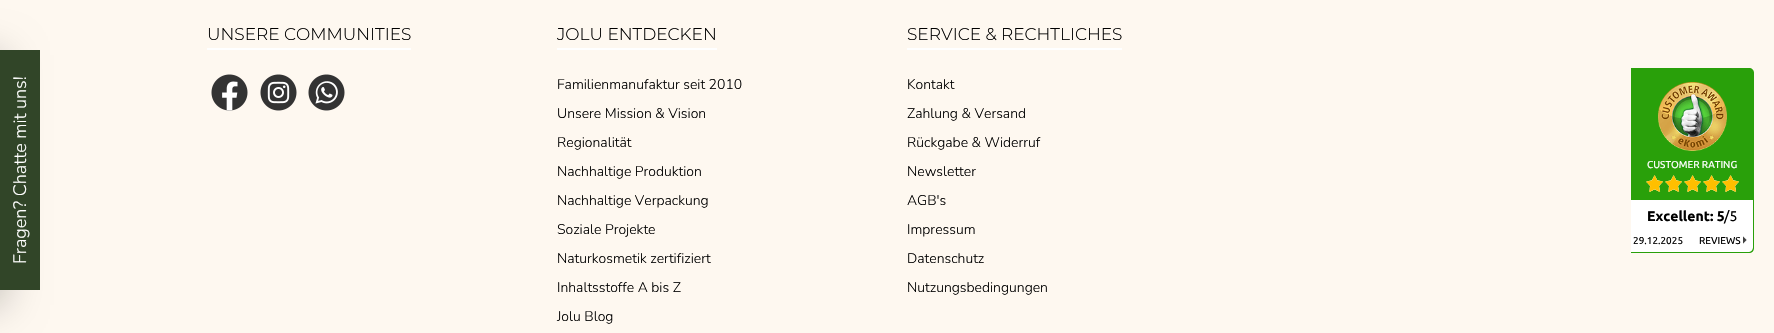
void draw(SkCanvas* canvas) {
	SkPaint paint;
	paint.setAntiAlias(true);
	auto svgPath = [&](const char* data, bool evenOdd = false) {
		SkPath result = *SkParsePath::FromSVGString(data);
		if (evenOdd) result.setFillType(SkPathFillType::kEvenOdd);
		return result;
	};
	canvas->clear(0xfffef8f0);
	paint.setColor(0x40000000);
	paint.setMaskFilter(SkMaskFilter::MakeBlur(kNormal_SkBlurStyle, 20));
	canvas->drawRect(SkRect::MakeXYWH(-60, 55, 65, 250), paint);
	paint.setMaskFilter(nullptr);
	paint.setColor(0xff314528);
	canvas->drawRect(SkRect::MakeXYWH(0, 50, 40, 240), paint);
	SkFont f1(fontMgr->matchFamilyStyle("Nunito", SkFontStyle(300, SkFontStyle::kNormal_Width, SkFontStyle::kUpright_Slant)), 18);
	f1.setSubpixel(true);
	paint.setColor(0xffffffff);
	canvas->save();
	canvas->rotate(-90, 26, 264);
	canvas->drawString("Fragen? Chatte mit uns!", 26, 264, f1, paint);
	canvas->restore();
	canvas->drawRect(SkRect::MakeXYWH(207, 48, 204, 2), paint);
	SkFont f2(fontMgr->matchFamilyStyle("Montserrat", SkFontStyle(300, SkFontStyle::kNormal_Width, SkFontStyle::kUpright_Slant)), 17);
	f2.setSubpixel(true);
	paint.setColor(0xff000000);
	canvas->drawString("UNSERE COMMUNITIES", 207, 40, f2, paint);
	canvas->drawImageRect(SkImages::DeferredFromEncodedData(SkData::MakeFromFileName("img1.png")), SkRect::MakeXYWH(211, 74, 37, 37), SkSamplingOptions());
	canvas->drawImageRect(SkImages::DeferredFromEncodedData(SkData::MakeFromFileName("img2.png")), SkRect::MakeXYWH(260, 74, 37, 37), SkSamplingOptions());
	canvas->drawImageRect(SkImages::DeferredFromEncodedData(SkData::MakeFromFileName("img3.png")), SkRect::MakeXYWH(308, 74, 37, 37), SkSamplingOptions());
	paint.setColor(0xffffffff);
	canvas->drawRect(SkRect::MakeXYWH(557, 48, 160, 2), paint);
	paint.setColor(0xff000000);
	canvas->drawString("JOLU ENTDECKEN", 557, 40, f2, paint);
	SkFont f3(fontMgr->matchFamilyStyle("Nunito", SkFontStyle(300, SkFontStyle::kNormal_Width, SkFontStyle::kUpright_Slant)), 14);
	f3.setSubpixel(true);
	canvas->drawString("Familienmanufaktur seit 2010", 557, 89, f3, paint);
	canvas->drawString("Unsere Mission & Vision", 557, 118, f3, paint);
	canvas->drawString("Regionalität", 557, 147, f3, paint);
	canvas->drawString("Nachhaltige Produktion", 557, 176, f3, paint);
	canvas->drawString("Nachhaltige Verpackung", 557, 205, f3, paint);
	canvas->drawString("Soziale Projekte", 557, 234, f3, paint);
	canvas->drawString("Naturkosmetik zertifiziert", 557, 263, f3, paint);
	canvas->drawString("Inhaltsstoffe A bis Z", 557, 292, f3, paint);
	canvas->drawString("Jolu Blog", 557, 321, f3, paint);
	paint.setColor(0xffffffff);
	canvas->drawRect(SkRect::MakeXYWH(907, 48, 215, 2), paint);
	paint.setColor(0xff000000);
	canvas->drawString("SERVICE & RECHTLICHES", 907, 40, f2, paint);
	canvas->drawString("Kontakt", 907, 89, f3, paint);
	canvas->drawString("Zahlung & Versand", 907, 118, f3, paint);
	canvas->drawString("Rückgabe & Widerruf", 907, 147, f3, paint);
	canvas->drawString("Newsletter", 907, 176, f3, paint);
	canvas->drawString("AGB's", 907, 205, f3, paint);
	canvas->drawString("Impressum", 907, 234, f3, paint);
	canvas->drawString("Datenschutz", 907, 263, f3, paint);
	canvas->drawString("Nutzungsbedingungen", 907, 292, f3, paint);
	paint.setColor(0xff29a00a);
	canvas->drawPath(svgPath("M1631 68H1749C1752 68 1754 70 1754 73V248C1754 251 1752 253 1749 253H1631Z"), paint);
	canvas->drawImageRect(SkImages::DeferredFromEncodedData(SkData::MakeFromFileName("img4.png")), SkRect::MakeXYWH(1658, 82, 69, 69), SkSamplingOptions());
	SkFont f4(fontMgr->matchFamilyStyle("Ubuntu", SkFontStyle::Normal()), 10);
	f4.setSubpixel(true);
	paint.setColor(0xffffffff);
	canvas->drawString("CUSTOMER RATING", 1647, 168, f4, paint);
	canvas->drawImageRect(SkImages::DeferredFromEncodedData(SkData::MakeFromFileName("img5.png")), SkRect::MakeXYWH(1646, 175, 93, 17), SkSamplingOptions());
	canvas->drawImageRect(SkImages::DeferredFromEncodedData(SkData::MakeFromFileName("img6.png")), SkRect::MakeXYWH(1646, 175, 93, 17), SkSamplingOptions());
	canvas->drawPath(svgPath("M1631 200H1753V247C1753 250 1751 252 1748 252H1631Z"), paint);
	SkFont f5(fontMgr->matchFamilyStyle("Ubuntu", SkFontStyle::Bold()), 14);
	f5.setSubpixel(true);
	paint.setColor(0xff000000);
	canvas->drawString("Excellent: 5", 1647, 221, f5, paint);
	SkFont f6(fontMgr->matchFamilyStyle("Ubuntu", SkFontStyle::Normal()), 14);
	f6.setSubpixel(true);
	canvas->drawString("/5", 1724, 221, f6, paint);
	canvas->drawString("29.12.2025", 1633, 244, f4, paint);
	canvas->drawString("REVIEWS", 1699, 244, f4, paint);
	canvas->drawImageRect(SkImages::DeferredFromEncodedData(SkData::MakeFromFileName("img7.png")), SkRect::MakeXYWH(1743, 236, 4, 8), SkSamplingOptions());
}
